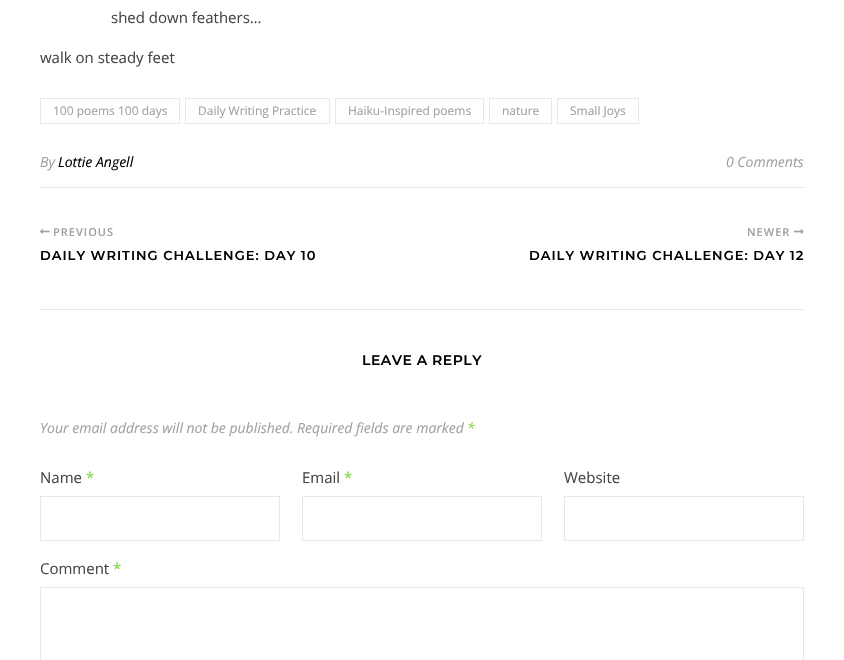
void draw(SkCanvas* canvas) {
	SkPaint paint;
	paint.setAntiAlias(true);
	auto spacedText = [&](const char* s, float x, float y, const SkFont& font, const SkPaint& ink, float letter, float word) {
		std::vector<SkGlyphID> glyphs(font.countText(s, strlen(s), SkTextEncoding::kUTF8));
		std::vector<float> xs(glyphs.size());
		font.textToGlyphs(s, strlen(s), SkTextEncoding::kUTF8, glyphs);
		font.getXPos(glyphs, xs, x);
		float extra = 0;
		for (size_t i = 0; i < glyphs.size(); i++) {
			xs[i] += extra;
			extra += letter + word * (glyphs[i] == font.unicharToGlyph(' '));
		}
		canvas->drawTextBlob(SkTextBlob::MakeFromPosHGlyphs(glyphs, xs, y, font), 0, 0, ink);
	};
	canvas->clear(0xffffffff);
	SkFont f1(fontMgr->matchFamilyStyle("Open Sans", SkFontStyle::Normal()), 15);
	f1.setSubpixel(true);
	paint.setColor(0xff464646);
	canvas->drawString("shed down feathers…", 111, 23, f1, paint);
	canvas->drawString("walk on steady feet", 40, 63, f1, paint);
	paint.setColor(0xffe8e8e8);
	canvas->drawRect(SkRect::MakeXYWH(40, 187, 764, 1), paint);
	paint.setStroke(true);
	paint.setStrokeWidth(1);
	canvas->drawRect(SkRect::MakeXYWH(40.5, 98.5, 139, 25), paint);
	SkFont f2(fontMgr->matchFamilyStyle("Open Sans", SkFontStyle::Normal()), 12);
	f2.setSubpixel(true);
	paint.setStroke(false);
	paint.setColor(0xffa1a1a1);
	canvas->drawString("100 poems 100 days", 53, 115, f2, paint);
	paint.setStroke(true);
	paint.setColor(0xffe8e8e8);
	canvas->drawRect(SkRect::MakeXYWH(185.5, 98.5, 144, 25), paint);
	paint.setStroke(false);
	paint.setColor(0xffa1a1a1);
	canvas->drawString("Daily Writing Practice", 198, 115, f2, paint);
	paint.setStroke(true);
	paint.setColor(0xffe8e8e8);
	canvas->drawRect(SkRect::MakeXYWH(335.5, 98.5, 148, 25), paint);
	paint.setStroke(false);
	paint.setColor(0xffa1a1a1);
	canvas->drawString("Haiku-Inspired poems", 348, 115, f2, paint);
	paint.setStroke(true);
	paint.setColor(0xffe8e8e8);
	canvas->drawRect(SkRect::MakeXYWH(489.5, 98.5, 62, 25), paint);
	paint.setStroke(false);
	paint.setColor(0xffa1a1a1);
	canvas->drawString("nature", 502, 115, f2, paint);
	paint.setStroke(true);
	paint.setColor(0xffe8e8e8);
	canvas->drawRect(SkRect::MakeXYWH(557.5, 98.5, 81, 25), paint);
	paint.setStroke(false);
	paint.setColor(0xffa1a1a1);
	canvas->drawString("Small Joys", 570, 115, f2, paint);
	SkFont f3(fontMgr->matchFamilyStyle("Open Sans", SkFontStyle::Italic()), 14);
	f3.setSubpixel(true);
	canvas->drawString("By", 40, 167, f3, paint);
	paint.setColor(0xff030303);
	canvas->drawString("Lottie Angell", 58, 167, f3, paint);
	paint.setColor(0xffa1a1a1);
	canvas->drawString("0 Comments", 726, 167, f3, paint);
	paint.setColor(0xffe8e8e8);
	canvas->drawRect(SkRect::MakeXYWH(40, 309, 764, 1), paint);
	canvas->drawImageRect(SkImages::DeferredFromEncodedData(SkData::MakeFromFileName("img1.png")), SkRect::MakeXYWH(40, 229, 10, 5), SkSamplingOptions());
	SkFont f4(fontMgr->matchFamilyStyle("Open Sans", SkFontStyle(600, SkFontStyle::kNormal_Width, SkFontStyle::kUpright_Slant)), 11);
	f4.setSubpixel(true);
	paint.setColor(0xffa1a1a1);
	spacedText("PREVIOUS", 53, 236, f4, paint, 1, 0);
	SkFont f5(fontMgr->matchFamilyStyle("Montserrat", SkFontStyle(600, SkFontStyle::kNormal_Width, SkFontStyle::kUpright_Slant)), 13);
	f5.setSubpixel(true);
	paint.setColor(0xff030303);
	spacedText("DAILY WRITING CHALLENGE: DAY 10", 40, 260, f5, paint, 1, 0);
	paint.setColor(0xffa1a1a1);
	spacedText("NEWER", 747, 236, f4, paint, 1, 0);
	canvas->drawImageRect(SkImages::DeferredFromEncodedData(SkData::MakeFromFileName("img2.png")), SkRect::MakeXYWH(794, 229, 10, 5), SkSamplingOptions());
	paint.setColor(0xff030303);
	spacedText("DAILY WRITING CHALLENGE: DAY 12", 529, 260, f5, paint, 1, 0);
	SkFont f6(fontMgr->matchFamilyStyle("Montserrat", SkFontStyle(600, SkFontStyle::kNormal_Width, SkFontStyle::kUpright_Slant)), 14);
	f6.setSubpixel(true);
	spacedText("LEAVE A REPLY", 362, 365, f6, paint, 0.5, 0);
	paint.setColor(0xffa1a1a1);
	canvas->drawString("Your email address will not be published. Required fields are marked", 40, 433, f3, paint);
	paint.setColor(0xff81d742);
	canvas->drawString("*", 467, 433, f3, paint);
	paint.setColor(0xff464646);
	canvas->drawString("Name", 40, 483, f1, paint);
	paint.setColor(0xff81d742);
	canvas->drawString("*", 86, 483, f1, paint);
	paint.setStroke(true);
	paint.setColor(0xffe8e8e8);
	canvas->drawRect(SkRect::MakeXYWH(40.5, 496.5, 239, 44), paint);
	paint.setStroke(false);
	paint.setColor(0xff464646);
	canvas->drawString("Email", 302, 483, f1, paint);
	paint.setColor(0xff81d742);
	canvas->drawString("*", 344, 483, f1, paint);
	paint.setStroke(true);
	paint.setColor(0xffe8e8e8);
	canvas->drawRect(SkRect::MakeXYWH(302.5, 496.5, 239, 44), paint);
	paint.setStroke(false);
	paint.setColor(0xff464646);
	canvas->drawString("Website", 564, 483, f1, paint);
	paint.setStroke(true);
	paint.setColor(0xffe8e8e8);
	canvas->drawRect(SkRect::MakeXYWH(564.5, 496.5, 239, 44), paint);
	paint.setStroke(false);
	paint.setColor(0xff464646);
	canvas->drawString("Comment", 40, 574, f1, paint);
	paint.setColor(0xff81d742);
	canvas->drawString("*", 113, 574, f1, paint);
	paint.setStroke(true);
	paint.setColor(0xffe8e8e8);
	canvas->drawRect(SkRect::MakeXYWH(40.5, 587.5, 763, 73), paint);
}
